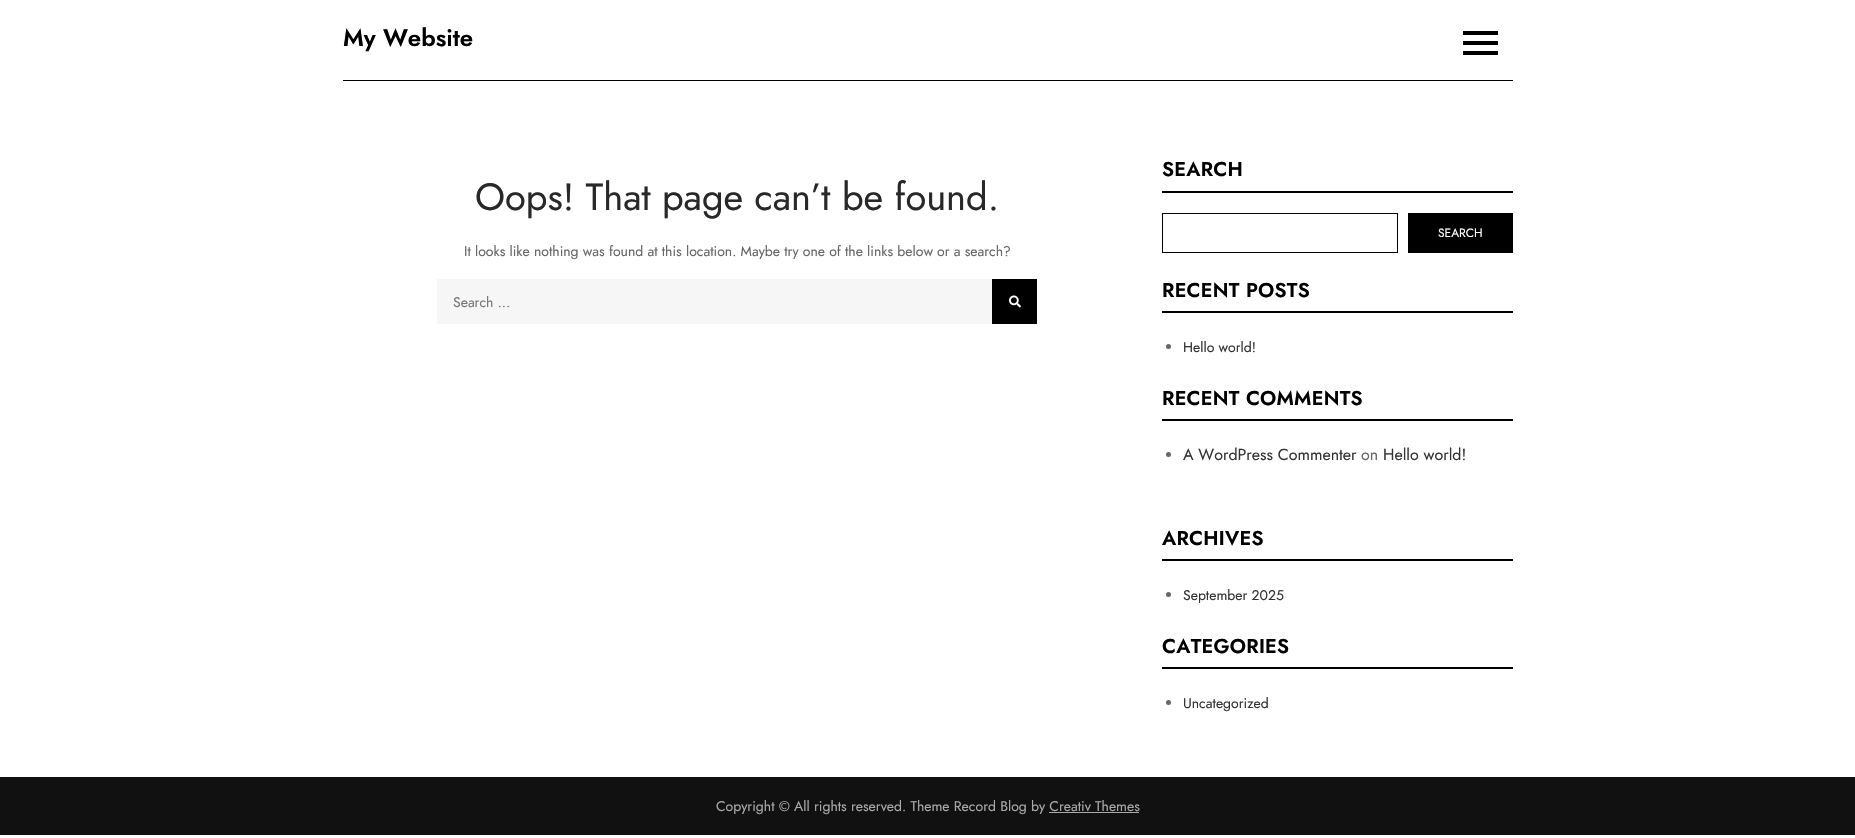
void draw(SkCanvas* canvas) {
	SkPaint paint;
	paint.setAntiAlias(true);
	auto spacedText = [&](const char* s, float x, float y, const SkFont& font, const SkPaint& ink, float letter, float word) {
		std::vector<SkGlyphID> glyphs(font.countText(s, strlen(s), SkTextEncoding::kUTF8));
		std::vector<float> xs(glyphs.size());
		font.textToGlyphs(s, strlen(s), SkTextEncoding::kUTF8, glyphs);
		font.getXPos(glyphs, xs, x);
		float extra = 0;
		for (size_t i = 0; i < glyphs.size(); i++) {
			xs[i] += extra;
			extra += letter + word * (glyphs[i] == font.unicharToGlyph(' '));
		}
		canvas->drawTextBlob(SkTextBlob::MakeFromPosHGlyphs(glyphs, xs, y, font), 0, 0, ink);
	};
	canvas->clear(0xffffffff);
	paint.setColor(0xff000000);
	canvas->drawRect(SkRect::MakeXYWH(343, 80, 1170, 1), paint);
	SkFont f1(fontMgr->matchFamilyStyle("Jost", SkFontStyle(600, SkFontStyle::kNormal_Width, SkFontStyle::kUpright_Slant)), 24);
	f1.setSubpixel(true);
	canvas->drawString("My Website", 343, 46, f1, paint);
	canvas->drawRect(SkRect::MakeXYWH(1463, 41, 35, 4), paint);
	canvas->drawRect(SkRect::MakeXYWH(1463, 31, 35, 4), paint);
	canvas->drawRect(SkRect::MakeXYWH(1463, 51, 35, 4), paint);
	SkFont f2(fontMgr->matchFamilyStyle("Jost", SkFontStyle::Normal()), 38);
	f2.setSubpixel(true);
	paint.setColor(0xff282828);
	canvas->drawString("Oops! That page can’t be found.", 475, 210, f2, paint);
	SkFont f3(fontMgr->matchFamilyStyle("Jost", SkFontStyle::Normal()), 14);
	f3.setSubpixel(true);
	paint.setColor(0xff666666);
	canvas->drawString("It looks like nothing was found at this location. Maybe try one of the links below or a search?", 464, 256, f3, paint);
	paint.setColor(0xfff6f6f6);
	canvas->drawRect(SkRect::MakeXYWH(437, 279, 555, 45), paint);
	paint.setColor(0xff757575);
	canvas->drawString("Search ...", 453, 307, f3, paint);
	paint.setColor(0xff000000);
	canvas->drawRect(SkRect::MakeXYWH(992, 279, 45, 45), paint);
	canvas->drawImageRect(SkImages::DeferredFromEncodedData(SkData::MakeFromFileName("img1.png")), SkRect::MakeXYWH(1009, 295, 12, 13), SkSamplingOptions());
	canvas->drawRect(SkRect::MakeXYWH(1162, 191, 351, 2), paint);
	SkFont f4(fontMgr->matchFamilyStyle("Jost", SkFontStyle(600, SkFontStyle::kNormal_Width, SkFontStyle::kUpright_Slant)), 20);
	f4.setSubpixel(true);
	spacedText("SEARCH", 1162, 176, f4, paint, 0.25, 0);
	paint.setStroke(true);
	paint.setStrokeWidth(1);
	canvas->drawRect(SkRect::MakeXYWH(1162.5, 213.5, 235, 39), paint);
	paint.setStroke(false);
	canvas->drawRect(SkRect::MakeXYWH(1408, 213, 105, 40), paint);
	SkFont f5(fontMgr->matchFamilyStyle("Jost", SkFontStyle::Normal()), 12);
	f5.setSubpixel(true);
	paint.setColor(0xffffffff);
	canvas->drawString("SEARCH", 1438, 237, f5, paint);
	paint.setColor(0xff000000);
	canvas->drawRect(SkRect::MakeXYWH(1162, 311, 351, 2), paint);
	spacedText("RECENT POSTS", 1162, 297, f4, paint, 0.25, 0);
	paint.setColor(0xff666666);
	canvas->drawCircle(1168.5, 346.5, 2.5, paint);
	paint.setColor(0xff333333);
	canvas->drawString("Hello world!", 1183, 352, f3, paint);
	paint.setColor(0xff000000);
	canvas->drawRect(SkRect::MakeXYWH(1162, 419, 351, 2), paint);
	spacedText("RECENT COMMENTS", 1162, 405, f4, paint, 0.25, 0);
	paint.setColor(0xff666666);
	canvas->drawCircle(1168.5, 454.5, 2.5, paint);
	SkFont f6(fontMgr->matchFamilyStyle("Jost", SkFontStyle::Normal()), 16);
	f6.setSubpixel(true);
	paint.setColor(0xff333333);
	canvas->drawString("A WordPress Commenter", 1183, 460, f6, paint);
	paint.setColor(0xff666666);
	canvas->drawString("on", 1361, 460, f6, paint);
	paint.setColor(0xff333333);
	canvas->drawString("Hello world!", 1383, 460, f6, paint);
	paint.setColor(0xff000000);
	canvas->drawRect(SkRect::MakeXYWH(1162, 559, 351, 2), paint);
	spacedText("ARCHIVES", 1162, 545, f4, paint, 0.25, 0);
	paint.setColor(0xff666666);
	canvas->drawCircle(1168.5, 594.5, 2.5, paint);
	paint.setColor(0xff333333);
	canvas->drawString("September 2025", 1183, 600, f3, paint);
	paint.setColor(0xff000000);
	canvas->drawRect(SkRect::MakeXYWH(1162, 667, 351, 2), paint);
	spacedText("CATEGORIES", 1162, 653, f4, paint, 0.25, 0);
	paint.setColor(0xff666666);
	canvas->drawCircle(1168.5, 702.5, 2.5, paint);
	paint.setColor(0xff333333);
	canvas->drawString("Uncategorized", 1183, 708, f3, paint);
	paint.setColor(0xff111111);
	canvas->drawRect(SkRect::MakeXYWH(0, 777, 1855, 58), paint);
	paint.setColor(0xffaaaaaa);
	canvas->drawString("Copyright © All rights reserved. Theme Record Blog by Creativ Themes", 716, 811, f3, paint);
	canvas->drawRect(SkRect::MakeXYWH(1049, 812, 90, 1), paint);
}
